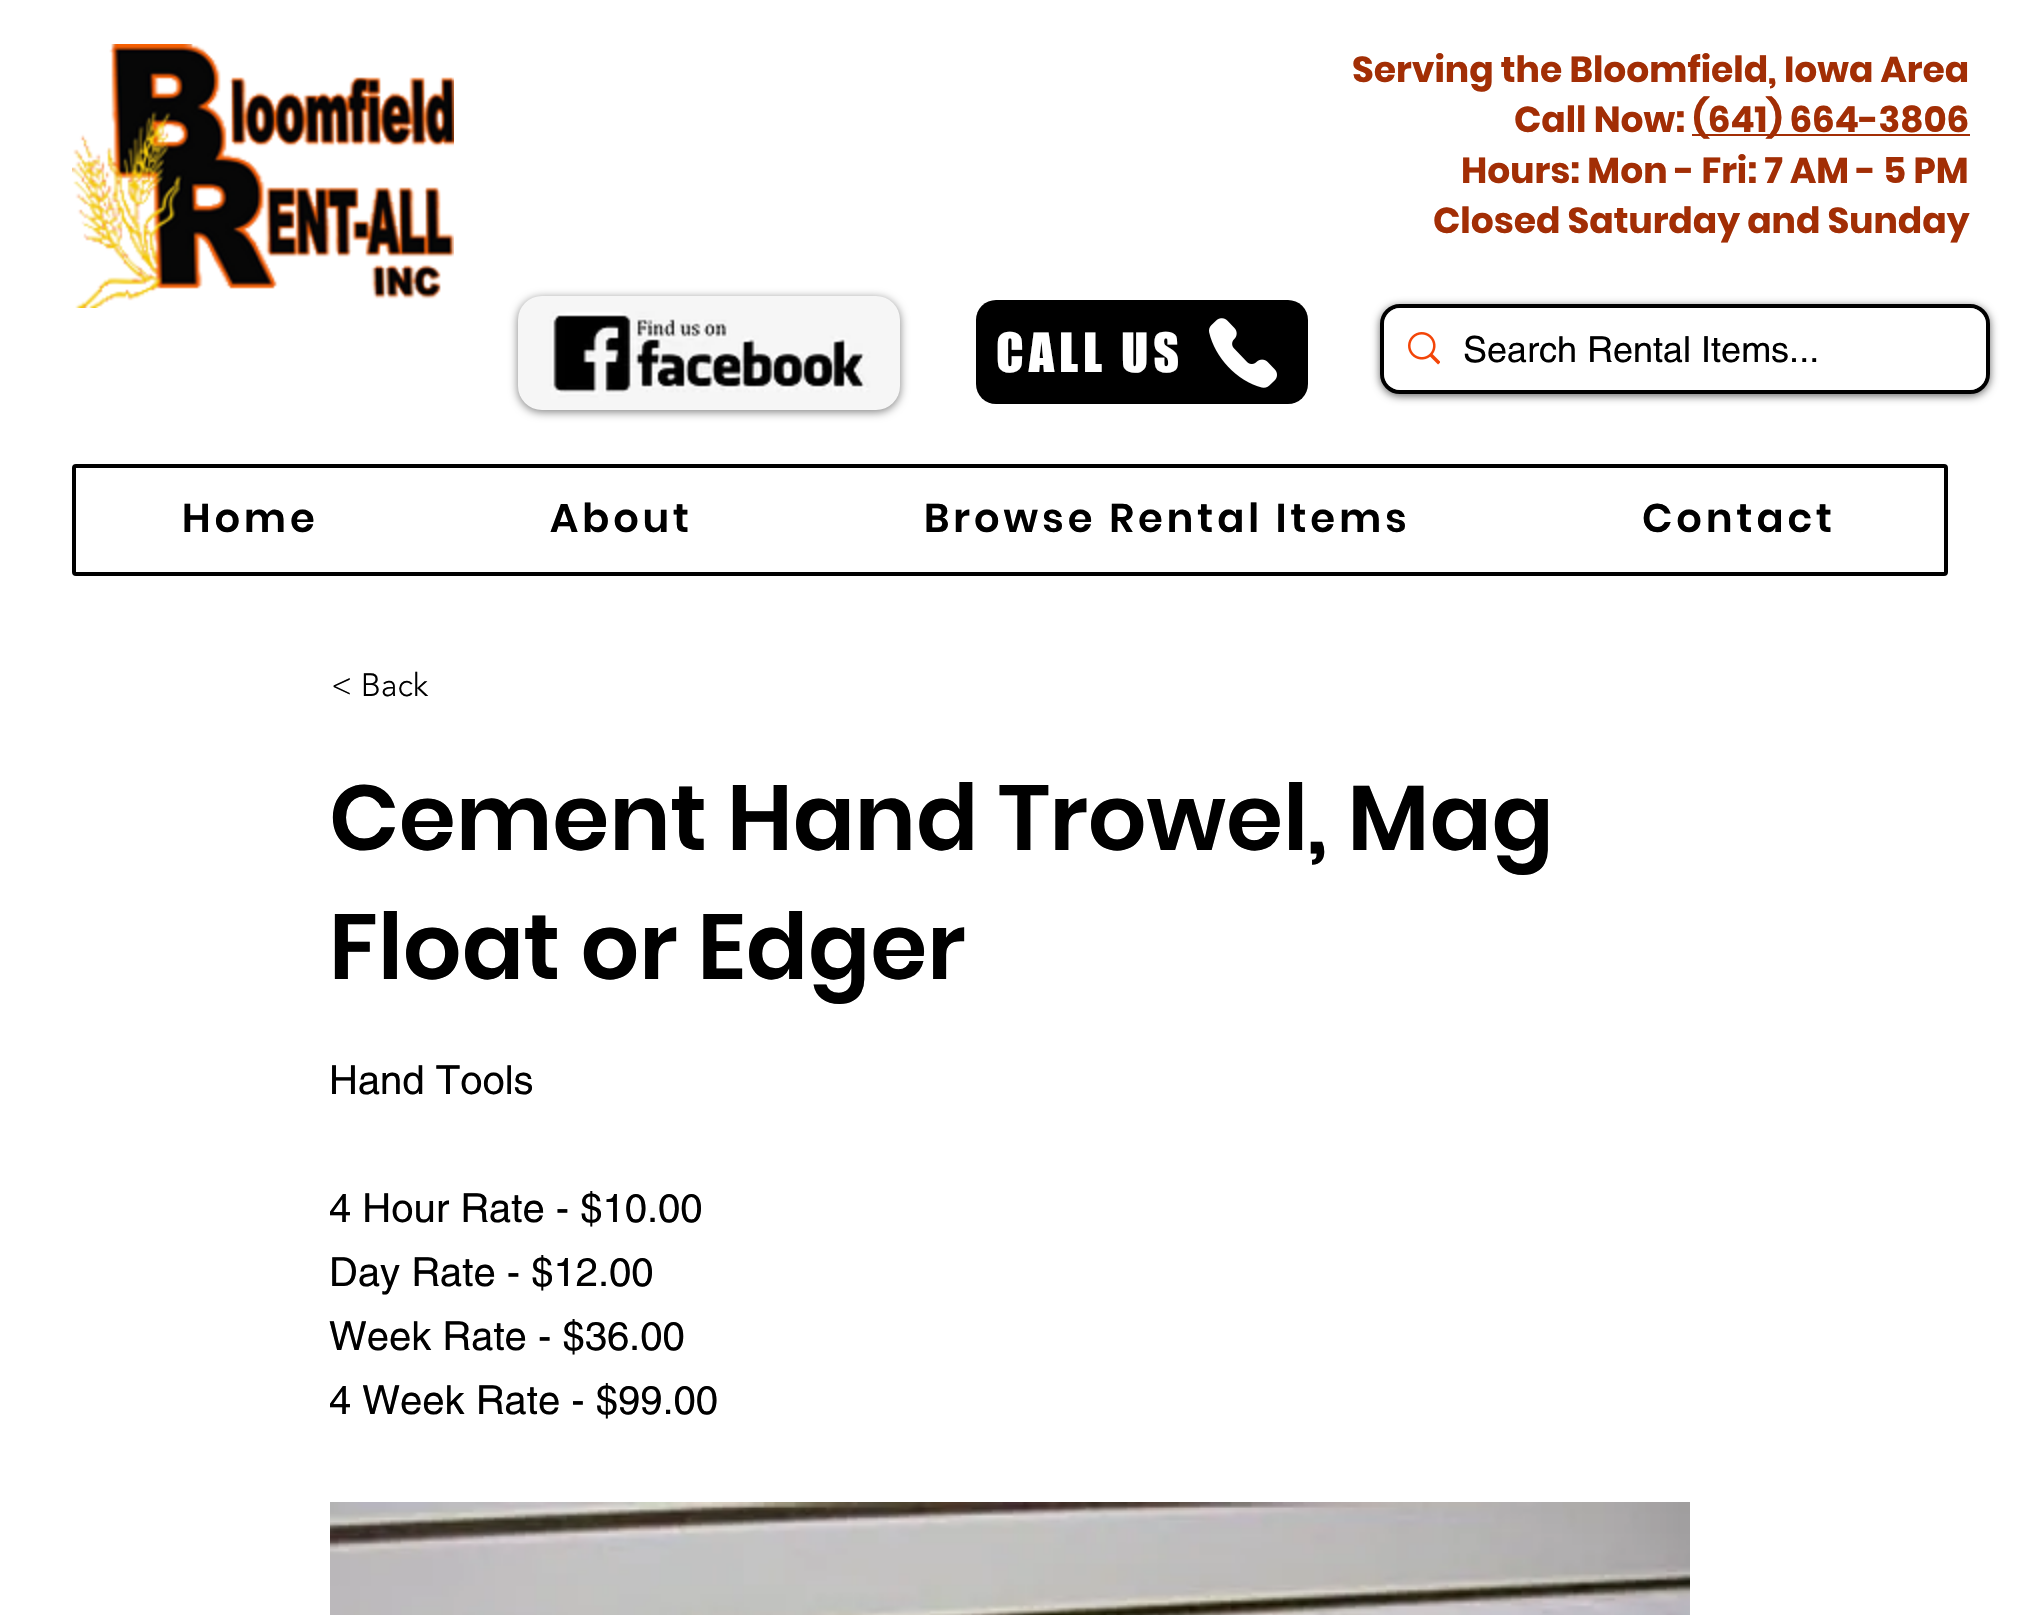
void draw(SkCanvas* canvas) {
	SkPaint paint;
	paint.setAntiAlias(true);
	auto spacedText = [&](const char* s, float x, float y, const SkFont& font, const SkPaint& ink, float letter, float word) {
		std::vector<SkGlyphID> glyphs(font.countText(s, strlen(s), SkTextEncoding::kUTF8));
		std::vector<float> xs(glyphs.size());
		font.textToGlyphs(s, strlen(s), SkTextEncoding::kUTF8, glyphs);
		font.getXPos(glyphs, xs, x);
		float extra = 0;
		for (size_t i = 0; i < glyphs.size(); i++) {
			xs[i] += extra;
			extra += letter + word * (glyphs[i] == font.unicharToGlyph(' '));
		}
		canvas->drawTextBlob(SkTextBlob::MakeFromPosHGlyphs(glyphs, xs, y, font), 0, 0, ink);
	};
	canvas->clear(0xffffffff);
	canvas->drawImageRect(SkImages::DeferredFromEncodedData(SkData::MakeFromFileName("img1.png")), SkRect::MakeXYWH(72, 44, 382, 264), SkSamplingOptions());
	SkFont f1(fontMgr->matchFamilyStyle("Poppins", SkFontStyle::Bold()), 36);
	f1.setSubpixel(true);
	paint.setColor(0xffa22e05);
	canvas->drawString("Serving the Bloomfield, Iowa Area", 1352, 82, f1, paint);
	canvas->drawString("Call Now:", 1514, 132, f1, paint);
	canvas->drawRect(SkRect::MakeXYWH(1692, 134, 278, 2), paint);
	canvas->drawString("(641) 664-3806", 1693, 132, f1, paint);
	canvas->drawString("Hours: Mon - Fri: 7 AM - 5 PM", 1461, 183, f1, paint);
	canvas->drawString("Closed Saturday and Sunday", 1433, 233, f1, paint);
	paint.setColor(0x80000000);
	paint.setMaskFilter(SkMaskFilter::MakeBlur(kNormal_SkBlurStyle, 5));
	canvas->drawRoundRect(SkRect::MakeXYWH(518, 298, 382, 114), 24, 24, paint);
	paint.setMaskFilter(nullptr);
	canvas->drawImageRect(SkImages::DeferredFromEncodedData(SkData::MakeFromFileName("img2.png")), SkRect::MakeXYWH(518, 296, 382, 114), SkSamplingOptions());
	paint.setColor(0xff000000);
	canvas->drawRoundRect(SkRect::MakeXYWH(976, 300, 332, 104), 20, 20, paint);
	SkFont f2(fontMgr->matchFamilyStyle("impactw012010", SkFontStyle::Normal()), 50);
	f2.setSubpixel(true);
	paint.setColor(0xffffffff);
	spacedText("CALL US", 996, 372, f2, paint, 5, 0);
	canvas->drawImageRect(SkImages::DeferredFromEncodedData(SkData::MakeFromFileName("img3.png")), SkRect::MakeXYWH(1209, 318, 68, 70), SkSamplingOptions());
	paint.setColor(0x99000000);
	paint.setMaskFilter(SkMaskFilter::MakeBlur(kNormal_SkBlurStyle, 4));
	canvas->drawRoundRect(SkRect::MakeXYWH(1380, 306, 610, 90), 20, 20, paint);
	paint.setMaskFilter(nullptr);
	paint.setStroke(true);
	paint.setStrokeWidth(4);
	paint.setColor(0xff000000);
	canvas->drawRoundRect(SkRect::MakeXYWH(1382, 306, 606, 86), 18, 18, paint);
	paint.setStroke(false);
	paint.setColor(0xffffffff);
	canvas->drawRoundRect(SkRect::MakeXYWH(1384, 308, 602, 82), 16, 16, paint);
	canvas->drawImageRect(SkImages::DeferredFromEncodedData(SkData::MakeFromFileName("img4.png")), SkRect::MakeXYWH(1408, 332, 32, 33), SkSamplingOptions());
	SkFont f3(fontMgr->matchFamilyStyle("helvetica", SkFontStyle::Normal()), 36);
	f3.setSubpixel(true);
	paint.setColor(0xff000000);
	canvas->drawString("Search Rental Items...", 1463, 362, f3, paint);
	paint.setStroke(true);
	canvas->drawRoundRect(SkRect::MakeXYWH(74, 466, 1872, 108), 2, 2, paint);
	SkFont f4(fontMgr->matchFamilyStyle("Poppins", SkFontStyle(600, SkFontStyle::kNormal_Width, SkFontStyle::kUpright_Slant)), 40);
	f4.setSubpixel(true);
	paint.setStroke(false);
	spacedText("Home", 182, 532, f4, paint, 4, 0);
	spacedText("About", 550, 532, f4, paint, 4, 0);
	spacedText("Browse Rental Items", 924, 532, f4, paint, 4, 0);
	spacedText("Contact", 1642, 532, f4, paint, 4, 0);
	SkFont f5(fontMgr->matchFamilyStyle("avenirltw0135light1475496", SkFontStyle(300, SkFontStyle::kNormal_Width, SkFontStyle::kUpright_Slant)), 32);
	f5.setSubpixel(true);
	canvas->drawString("< Back", 331, 696, f5, paint);
	SkFont f6(fontMgr->matchFamilyStyle("Poppins", SkFontStyle(600, SkFontStyle::kNormal_Width, SkFontStyle::kUpright_Slant)), 92);
	f6.setSubpixel(true);
	canvas->drawString("Cement Hand Trowel, Mag", 329, 850, f6, paint);
	canvas->drawString("Float or Edger", 329, 979, f6, paint);
	SkFont f7(fontMgr->matchFamilyStyle("helvetica", SkFontStyle::Normal()), 40);
	f7.setSubpixel(true);
	canvas->drawString("Hand Tools", 329, 1094, f7, paint);
	canvas->drawString("4 Hour Rate - $10.00", 329, 1222, f7, paint);
	canvas->drawString("Day Rate - $12.00", 329, 1286, f7, paint);
	canvas->drawString("Week Rate - $36.00", 329, 1350, f7, paint);
	canvas->drawString("4 Week Rate - $99.00", 329, 1414, f7, paint);
	canvas->drawImageRect(SkImages::DeferredFromEncodedData(SkData::MakeFromFileName("img5.png")), SkRect::MakeXYWH(330, 1502, 1360, 113), SkSamplingOptions());
}
